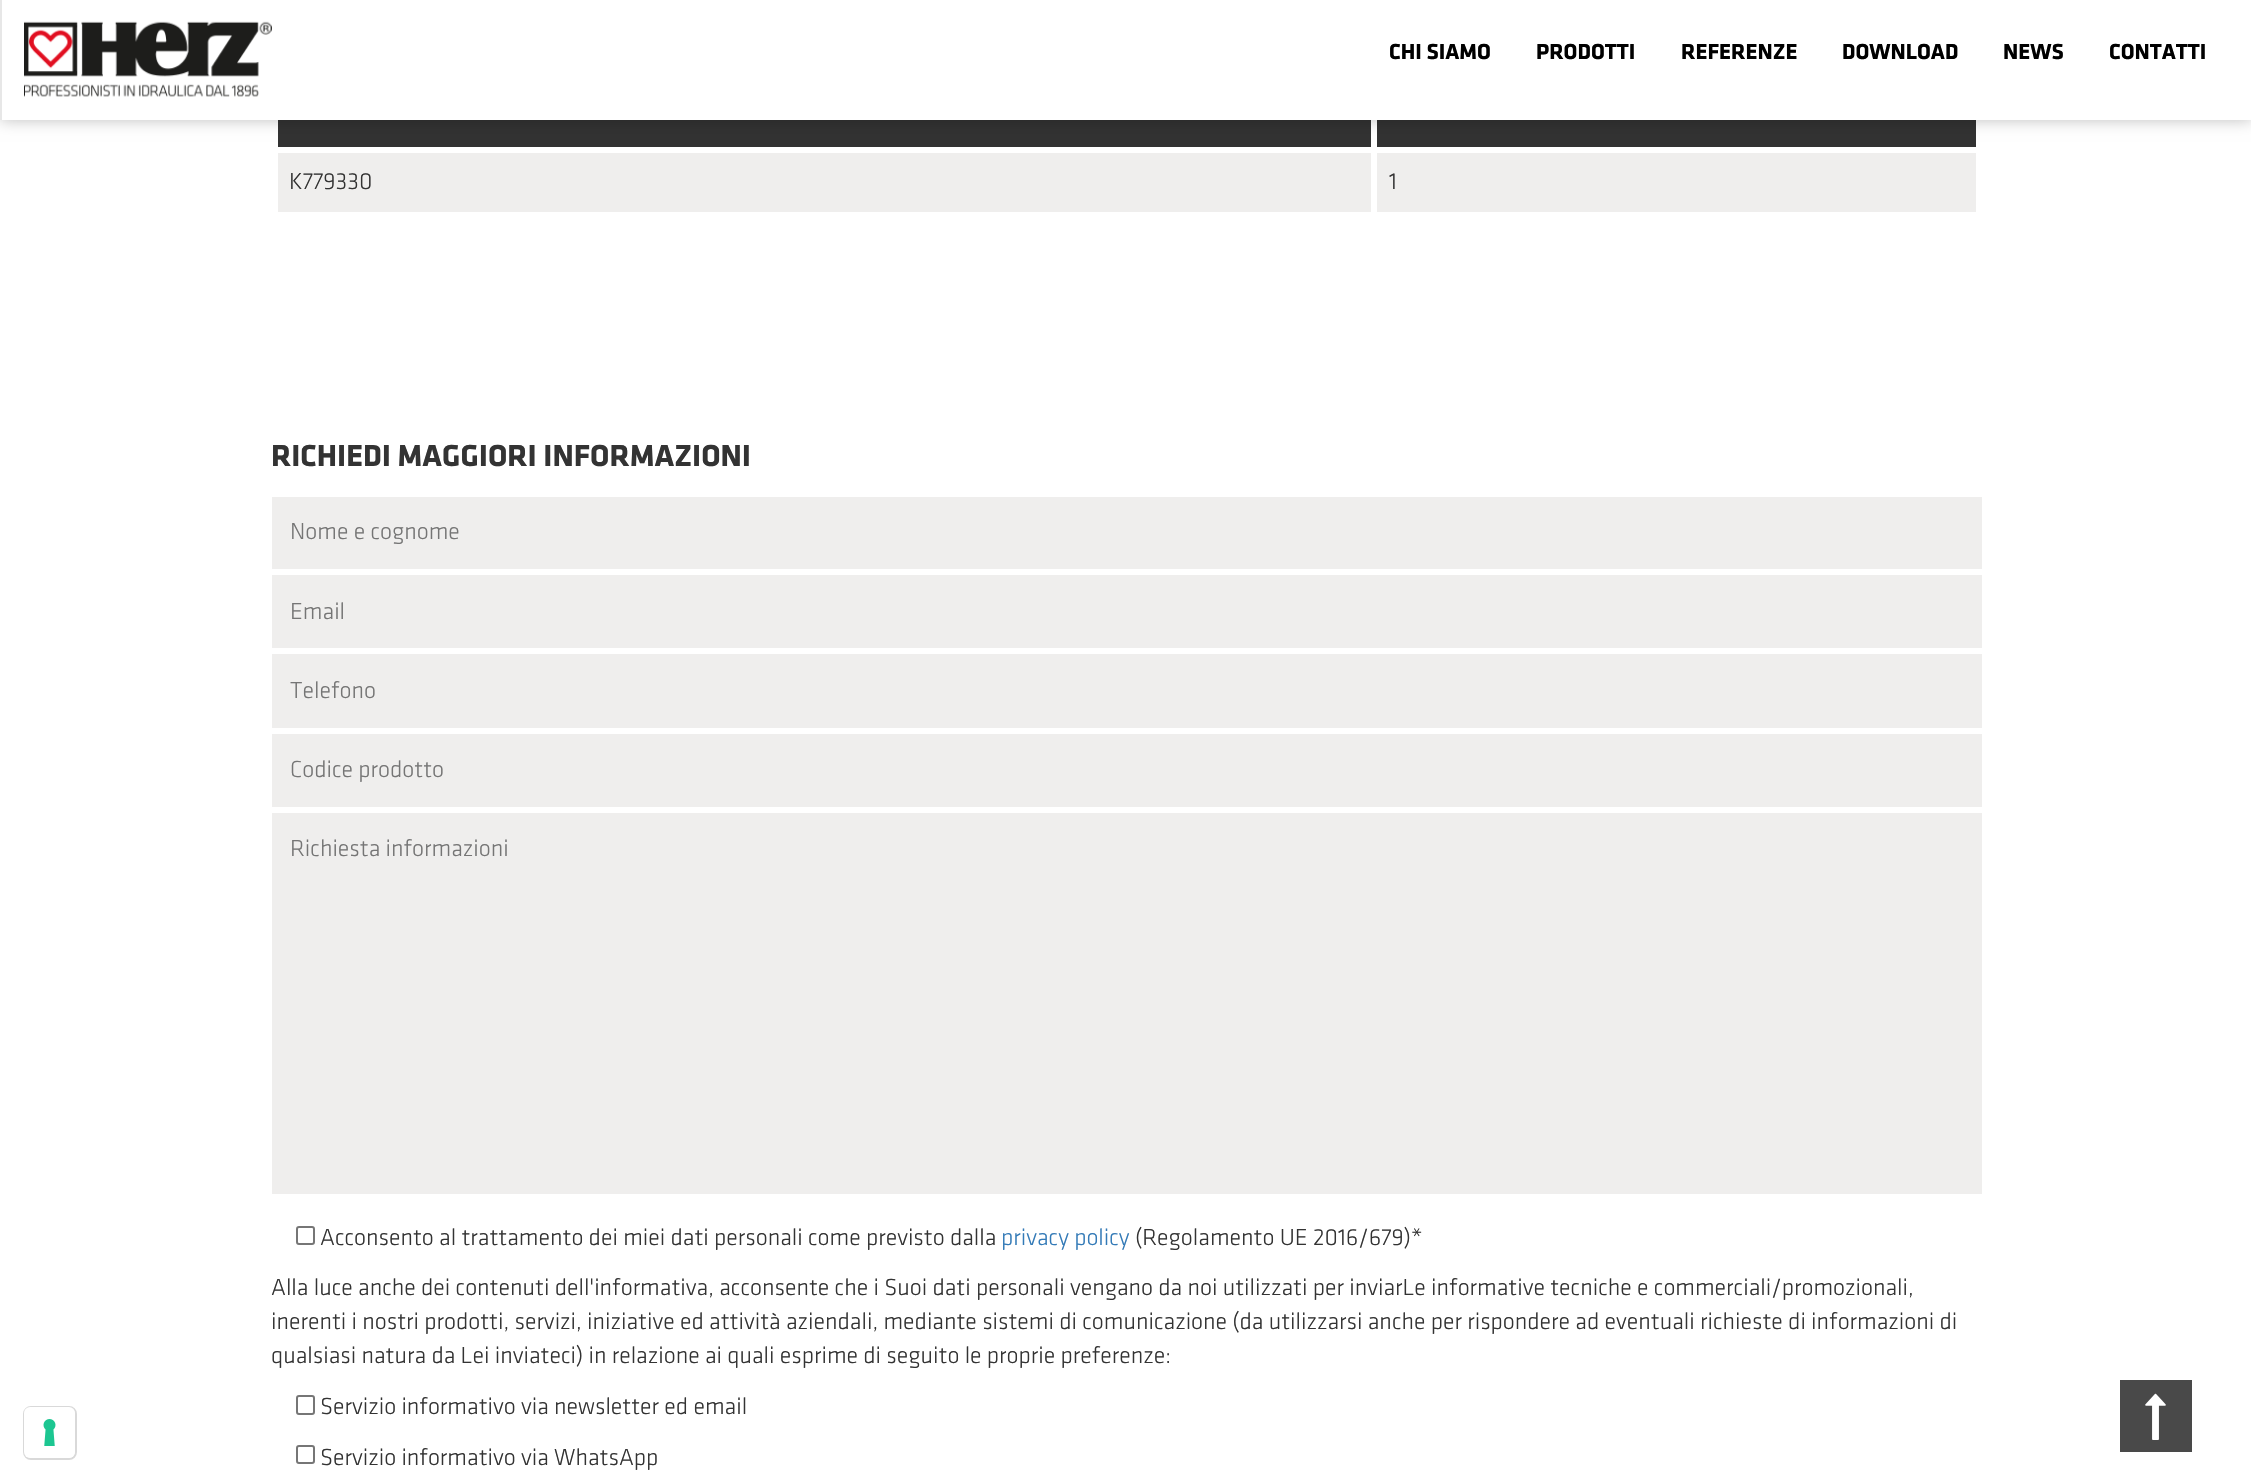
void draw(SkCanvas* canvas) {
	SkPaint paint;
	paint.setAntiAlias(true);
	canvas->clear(0xffffffff);
	paint.setColor(0xff323232);
	canvas->drawRect(SkRect::MakeXYWH(278, 120, 1698, 27), paint);
	paint.setColor(0xffefeeed);
	canvas->drawRect(SkRect::MakeXYWH(278, 153, 1698, 59), paint);
	paint.setColor(0xffffffff);
	canvas->drawRect(SkRect::MakeXYWH(1371, 120, 6, 98), paint);
	paint.setColor(0x40000000);
	paint.setMaskFilter(SkMaskFilter::MakeBlur(kNormal_SkBlurStyle, 7.5));
	canvas->drawRect(SkRect::MakeXYWH(0, 0, 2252, 120), paint);
	paint.setMaskFilter(nullptr);
	paint.setColor(0xffffffff);
	canvas->drawRect(SkRect::MakeXYWH(2, 0, 2249, 120), paint);
	paint.setColor(0xffe7e7e7);
	canvas->drawRect(SkRect::MakeXYWH(0, 0, 2, 120), paint);
	canvas->drawImageRect(SkImages::DeferredFromEncodedData(SkData::MakeFromFileName("img1.png")), SkRect::MakeXYWH(24, 21, 248, 76), SkSamplingOptions());
	SkFont f1(fontMgr->matchFamilyStyle("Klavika", SkFontStyle::Bold()), 22.5);
	f1.setSubpixel(true);
	paint.setColor(0xff000000);
	canvas->drawString("CHI SIAMO", 1389, 59, f1, paint);
	canvas->drawString("PRODOTTI", 1536, 59, f1, paint);
	canvas->drawString("REFERENZE", 1681, 59, f1, paint);
	canvas->drawString("DOWNLOAD", 1842, 59, f1, paint);
	canvas->drawString("NEWS", 2003, 59, f1, paint);
	canvas->drawString("CONTATTI", 2109, 59, f1, paint);
	paint.setStroke(true);
	paint.setStrokeWidth(2);
	paint.setColor(0xffd9d9d9);
	canvas->drawRoundRect(SkRect::MakeXYWH(24, 1407, 52, 52), 7, 7, paint);
	paint.setStroke(false);
	paint.setColor(0xffffffff);
	canvas->drawRoundRect(SkRect::MakeXYWH(24, 1407, 51, 51), 6, 6, paint);
	canvas->drawImageRect(SkImages::DeferredFromEncodedData(SkData::MakeFromFileName("img2.png")), SkRect::MakeXYWH(43, 1419, 13, 27), SkSamplingOptions());
	SkFont f2(fontMgr->matchFamilyStyle("Klavika", SkFontStyle(300, SkFontStyle::kNormal_Width, SkFontStyle::kUpright_Slant)), 24);
	f2.setSubpixel(true);
	paint.setColor(0xff333333);
	canvas->drawString("K779330", 289, 189, f2, paint);
	canvas->drawString("1", 1389, 189, f2, paint);
	SkFont f3(fontMgr->matchFamilyStyle("Klavika", SkFontStyle::Bold()), 31.5);
	f3.setSubpixel(true);
	canvas->drawString("RICHIEDI MAGGIORI INFORMAZIONI", 271, 466, f3, paint);
	paint.setColor(0xffefeeed);
	canvas->drawRect(SkRect::MakeXYWH(272, 497, 1710, 72), paint);
	paint.setColor(0xff757575);
	canvas->drawString("Nome e cognome", 290, 539, f2, paint);
	paint.setColor(0xffefeeed);
	canvas->drawRect(SkRect::MakeXYWH(272, 575, 1710, 73), paint);
	paint.setColor(0xff757575);
	canvas->drawString("Email", 290, 619, f2, paint);
	paint.setColor(0xffefeeed);
	canvas->drawRect(SkRect::MakeXYWH(272, 654, 1710, 74), paint);
	paint.setColor(0xff757575);
	canvas->drawString("Telefono", 290, 698, f2, paint);
	paint.setColor(0xffefeeed);
	canvas->drawRect(SkRect::MakeXYWH(272, 734, 1710, 73), paint);
	paint.setColor(0xff757575);
	canvas->drawString("Codice prodotto", 290, 777, f2, paint);
	paint.setColor(0xffefeeed);
	canvas->drawRect(SkRect::MakeXYWH(272, 813, 1710, 381), paint);
	paint.setColor(0xff757575);
	canvas->drawString("Richiesta informazioni", 290, 856, f2, paint);
	paint.setStroke(true);
	paint.setColor(0xff767676);
	canvas->drawRoundRect(SkRect::MakeXYWH(297, 1227, 17, 17), 2, 2, paint);
	paint.setStroke(false);
	paint.setColor(0xff333333);
	canvas->drawString("Acconsento al trattamento dei miei dati personali come previsto dalla", 320, 1245, f2, paint);
	paint.setColor(0xff337ab7);
	canvas->drawString("privacy policy", 1001, 1245, f2, paint);
	paint.setColor(0xff333333);
	canvas->drawString("(Regolamento UE 2016/679)*", 1135, 1245, f2, paint);
	canvas->drawString("Alla luce anche dei contenuti dell'informativa, acconsente che i Suoi dati personali vengano da noi utilizzati per inviarLe informative tecniche e commerciali/promozionali,", 271, 1295, f2, paint);
	canvas->drawString("inerenti i nostri prodotti, servizi, iniziative ed attività aziendali, mediante sistemi di comunicazione (da utilizzarsi anche per rispondere ad eventuali richieste di informazioni di", 271, 1329, f2, paint);
	canvas->drawString("qualsiasi natura da Lei inviateci) in relazione ai quali esprime di seguito le proprie preferenze:", 271, 1363, f2, paint);
	paint.setStroke(true);
	paint.setColor(0xff767676);
	canvas->drawRoundRect(SkRect::MakeXYWH(297, 1396, 17, 18), 2, 2, paint);
	paint.setStroke(false);
	paint.setColor(0xff333333);
	canvas->drawString("Servizio informativo via newsletter ed email", 320, 1414, f2, paint);
	paint.setStroke(true);
	paint.setColor(0xff767676);
	canvas->drawRoundRect(SkRect::MakeXYWH(297, 1446, 17, 17), 2, 2, paint);
	paint.setStroke(false);
	paint.setColor(0xff333333);
	canvas->drawString("Servizio informativo via WhatsApp", 320, 1465, f2, paint);
	paint.setColor(0xff494949);
	canvas->drawRect(SkRect::MakeXYWH(2120, 1380, 72, 72), paint);
	canvas->drawImageRect(SkImages::DeferredFromEncodedData(SkData::MakeFromFileName("img3.png")), SkRect::MakeXYWH(2145, 1393, 21, 47), SkSamplingOptions());
}
